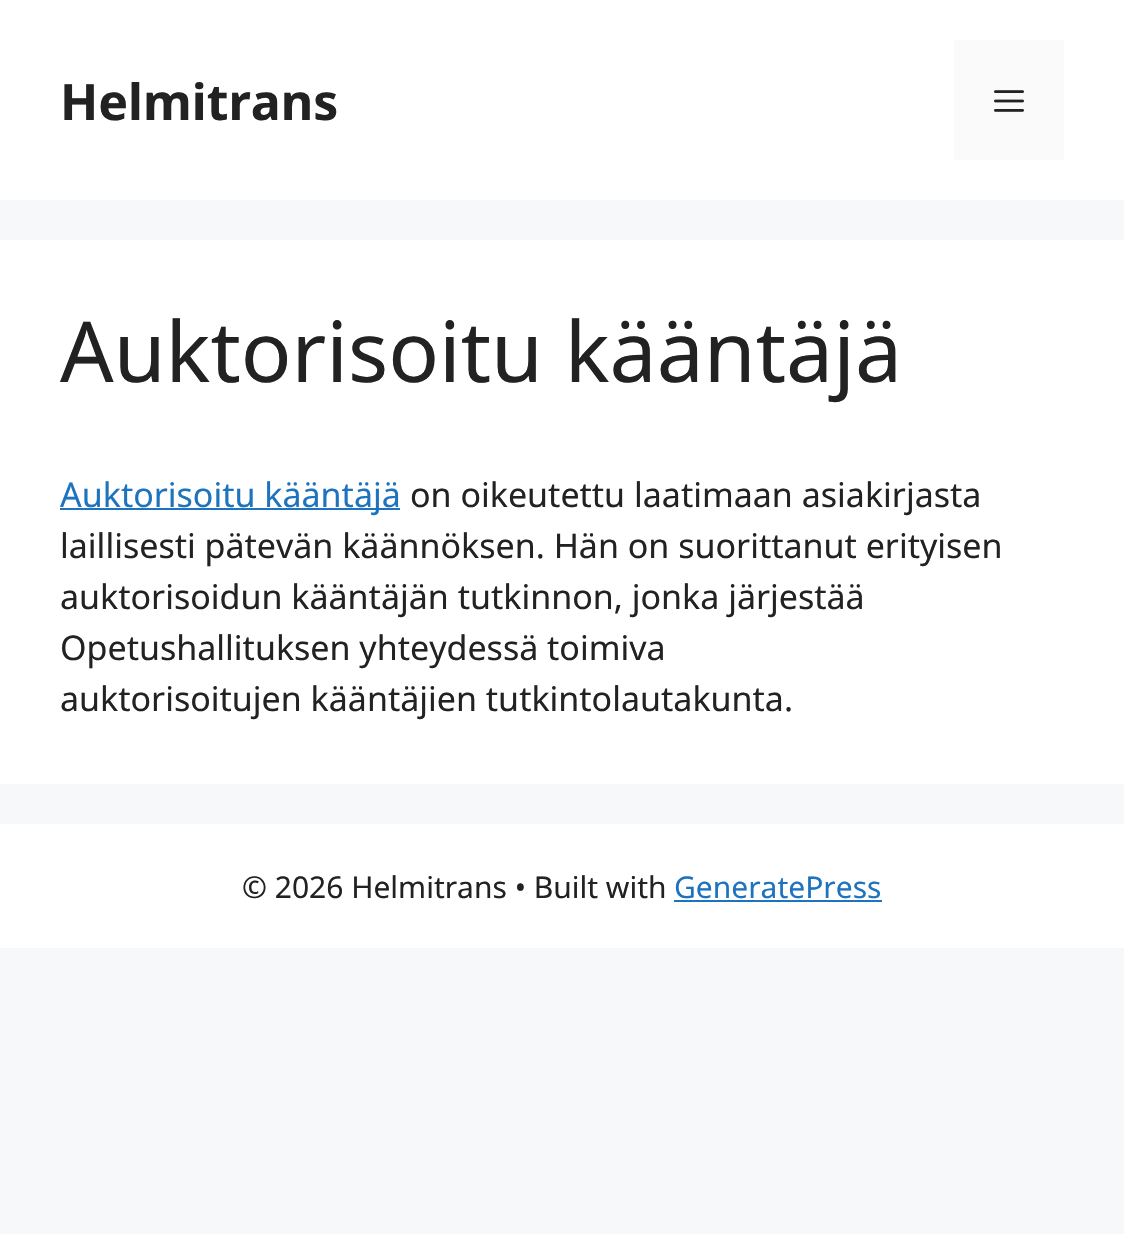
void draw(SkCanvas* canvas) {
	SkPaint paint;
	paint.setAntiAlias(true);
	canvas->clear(0xfff7f8f9);
	paint.setColor(0xffffffff);
	canvas->drawRect(SkRect::MakeXYWH(0, 0, 1124, 200), paint);
	SkFont f1(fontMgr->matchFamilyStyle("Noto Sans", SkFontStyle::Bold()), 50);
	f1.setSubpixel(true);
	paint.setColor(0xff222222);
	canvas->drawString("Helmitrans", 60, 120, f1, paint);
	paint.setColor(0xfffafafa);
	canvas->drawRect(SkRect::MakeXYWH(954, 40, 110, 120), paint);
	canvas->drawImageRect(SkImages::DeferredFromEncodedData(SkData::MakeFromFileName("img1.png")), SkRect::MakeXYWH(994, 90, 30, 22), SkSamplingOptions());
	paint.setColor(0xffffffff);
	canvas->drawRect(SkRect::MakeXYWH(0, 240, 1124, 544), paint);
	SkFont f2(fontMgr->matchFamilyStyle("Noto Sans", SkFontStyle::Normal()), 84);
	f2.setSubpixel(true);
	paint.setColor(0xff222222);
	canvas->drawString("Auktorisoitu kääntäjä", 60, 382, f2, paint);
	paint.setColor(0xff1e73be);
	canvas->drawRect(SkRect::MakeXYWH(60, 508, 340, 2), paint);
	SkFont f3(fontMgr->matchFamilyStyle("Noto Sans", SkFontStyle::Normal()), 34);
	f3.setSubpixel(true);
	canvas->drawString("Auktorisoitu kääntäjä", 60, 507, f3, paint);
	paint.setColor(0xff222222);
	canvas->drawString("on oikeutettu laatimaan asiakirjasta", 410, 507, f3, paint);
	canvas->drawString("laillisesti pätevän käännöksen. Hän on suorittanut erityisen", 60, 558, f3, paint);
	canvas->drawString("auktorisoidun kääntäjän tutkinnon, jonka järjestää", 60, 609, f3, paint);
	canvas->drawString("Opetushallituksen yhteydessä toimiva", 60, 660, f3, paint);
	canvas->drawString("auktorisoitujen kääntäjien tutkintolautakunta.", 60, 711, f3, paint);
	paint.setColor(0xffffffff);
	canvas->drawRect(SkRect::MakeXYWH(0, 824, 1124, 124), paint);
	SkFont f4(fontMgr->matchFamilyStyle("Noto Sans", SkFontStyle::Normal()), 30);
	f4.setSubpixel(true);
	paint.setColor(0xff222222);
	canvas->drawString("© 2026 Helmitrans • Built with", 242, 898, f4, paint);
	paint.setColor(0xff1e73be);
	canvas->drawString("GeneratePress", 674, 898, f4, paint);
	canvas->drawRect(SkRect::MakeXYWH(674, 900, 208, 2), paint);
}
